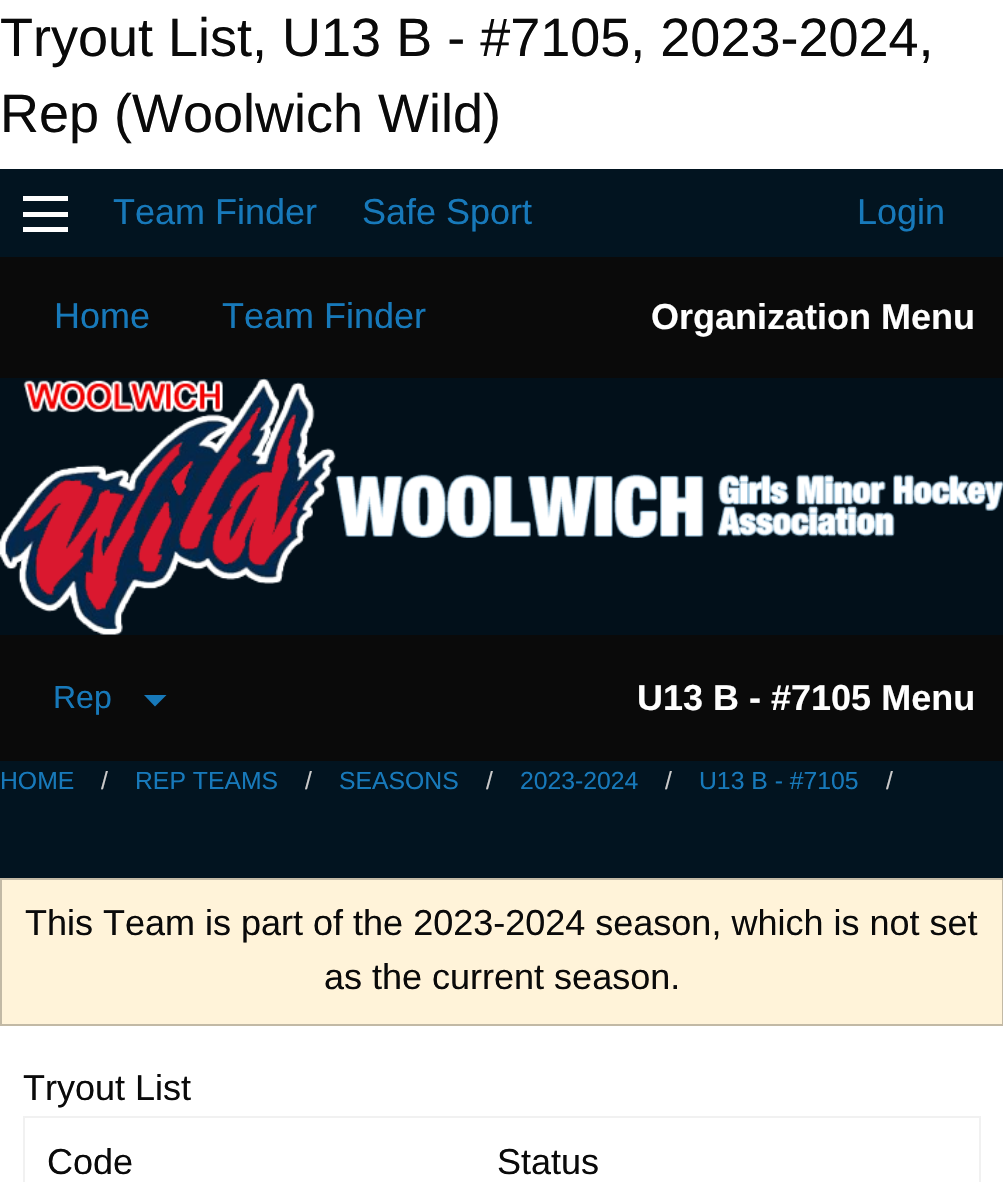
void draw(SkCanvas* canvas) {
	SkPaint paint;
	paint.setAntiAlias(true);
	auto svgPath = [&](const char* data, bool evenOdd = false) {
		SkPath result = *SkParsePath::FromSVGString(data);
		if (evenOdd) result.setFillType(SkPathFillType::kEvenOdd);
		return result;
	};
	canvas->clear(0xffffffff);
	SkFont f1(fontMgr->matchFamilyStyle("Liberation Sans", SkFontStyle::Normal()), 54);
	f1.setSubpixel(true);
	paint.setColor(0xff0a0a0a);
	canvas->drawString("Tryout List, U13 B - #7105, 2023-2024,", 0, 56, f1, paint);
	canvas->drawString("Rep (Woolwich Wild)", 0, 132, f1, paint);
	paint.setColor(0xff021420);
	canvas->drawRect(SkRect::MakeXYWH(0, 169, 1003, 709), paint);
	paint.setColor(0xfffefefe);
	canvas->drawRect(SkRect::MakeXYWH(23, 227, 45, 5), paint);
	canvas->drawRect(SkRect::MakeXYWH(23, 212, 45, 5), paint);
	canvas->drawRect(SkRect::MakeXYWH(23, 196, 45, 5), paint);
	SkFont f2(fontMgr->matchFamilyStyle("Liberation Sans", SkFontStyle::Normal()), 36);
	f2.setSubpixel(true);
	paint.setColor(0xff1779ba);
	canvas->drawString("Team Finder", 113, 224, f2, paint);
	canvas->drawString("Safe Sport", 362, 224, f2, paint);
	canvas->drawString("Login", 857, 224, f2, paint);
	paint.setColor(0xff0a0a0a);
	canvas->drawRect(SkRect::MakeXYWH(0, 257, 1003, 121), paint);
	paint.setColor(0xff1779ba);
	canvas->drawString("Home", 54, 328, f2, paint);
	canvas->drawString("Team Finder", 222, 328, f2, paint);
	SkFont f3(fontMgr->matchFamilyStyle("Liberation Sans", SkFontStyle::Bold()), 36);
	f3.setSubpixel(true);
	paint.setColor(0xfffefefe);
	canvas->drawString("Organization Menu", 651, 329, f3, paint);
	paint.setColor(0xff02101a);
	canvas->drawRect(SkRect::MakeXYWH(0, 378, 1003, 257), paint);
	canvas->drawImageRect(SkImages::DeferredFromEncodedData(SkData::MakeFromFileName("img1.png")), SkRect::MakeXYWH(0, 378, 336, 257), SkSamplingOptions());
	canvas->drawImageRect(SkImages::DeferredFromEncodedData(SkData::MakeFromFileName("img2.png")), SkRect::MakeXYWH(335, 474, 668, 64), SkSamplingOptions());
	paint.setColor(0xff0a0a0a);
	canvas->drawRect(SkRect::MakeXYWH(0, 635, 1003, 126), paint);
	SkFont f4(fontMgr->matchFamilyStyle("Liberation Sans", SkFontStyle::Normal()), 32);
	f4.setSubpixel(true);
	paint.setColor(0xff1779ba);
	canvas->drawString("Rep", 53, 708, f4, paint);
	canvas->drawPath(svgPath("M144 695H166.5L155 706.5Z"), paint);
	paint.setColor(0xfffefefe);
	canvas->drawString("U13 B - #7105 Menu", 637, 710, f3, paint);
	SkFont f5(fontMgr->matchFamilyStyle("Liberation Sans", SkFontStyle::Normal()), 24.75);
	f5.setSubpixel(true);
	paint.setColor(0xff1779ba);
	canvas->drawString("HOME", 0, 789, f5, paint);
	paint.setColor(0xffcacaca);
	canvas->drawString("/", 101, 789, f5, paint);
	paint.setColor(0xff1779ba);
	canvas->drawString("REP TEAMS", 135, 789, f5, paint);
	paint.setColor(0xffcacaca);
	canvas->drawString("/", 305, 789, f5, paint);
	paint.setColor(0xff1779ba);
	canvas->drawString("SEASONS", 339, 789, f5, paint);
	paint.setColor(0xffcacaca);
	canvas->drawString("/", 486, 789, f5, paint);
	paint.setColor(0xff1779ba);
	canvas->drawString("2023-2024", 520, 789, f5, paint);
	paint.setColor(0xffcacaca);
	canvas->drawString("/", 665, 789, f5, paint);
	paint.setColor(0xff1779ba);
	canvas->drawString("U13 B - #7105", 699, 789, f5, paint);
	paint.setColor(0xffcacaca);
	canvas->drawString("/", 886, 789, f5, paint);
	paint.setColor(0xfffff3d9);
	canvas->drawRect(SkRect::MakeXYWH(1, 879, 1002, 146), paint);
	paint.setStroke(true);
	paint.setStrokeWidth(2);
	paint.setColor(0xffc2b9a5);
	canvas->drawRect(SkRect::MakeXYWH(1, 879, 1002, 146), paint);
	paint.setStroke(false);
	paint.setColor(0xff0a0a0a);
	canvas->drawString("This Team is part of the 2023-2024 season, which is not set", 25, 935, f2, paint);
	canvas->drawString("as the current season.", 324, 989, f2, paint);
	canvas->drawString("Tryout List", 23, 1100, f2, paint);
	paint.setColor(0xfff1f1f1);
	canvas->drawRect(SkRect::MakeXYWH(23, 1116, 958, 2), paint);
	canvas->drawRect(SkRect::MakeXYWH(979, 1116, 2, 66), paint);
	canvas->drawRect(SkRect::MakeXYWH(23, 1116, 2, 66), paint);
	paint.setColor(0xff0a0a0a);
	canvas->drawString("Code", 47, 1174, f2, paint);
	canvas->drawString("Status", 497, 1174, f2, paint);
}
